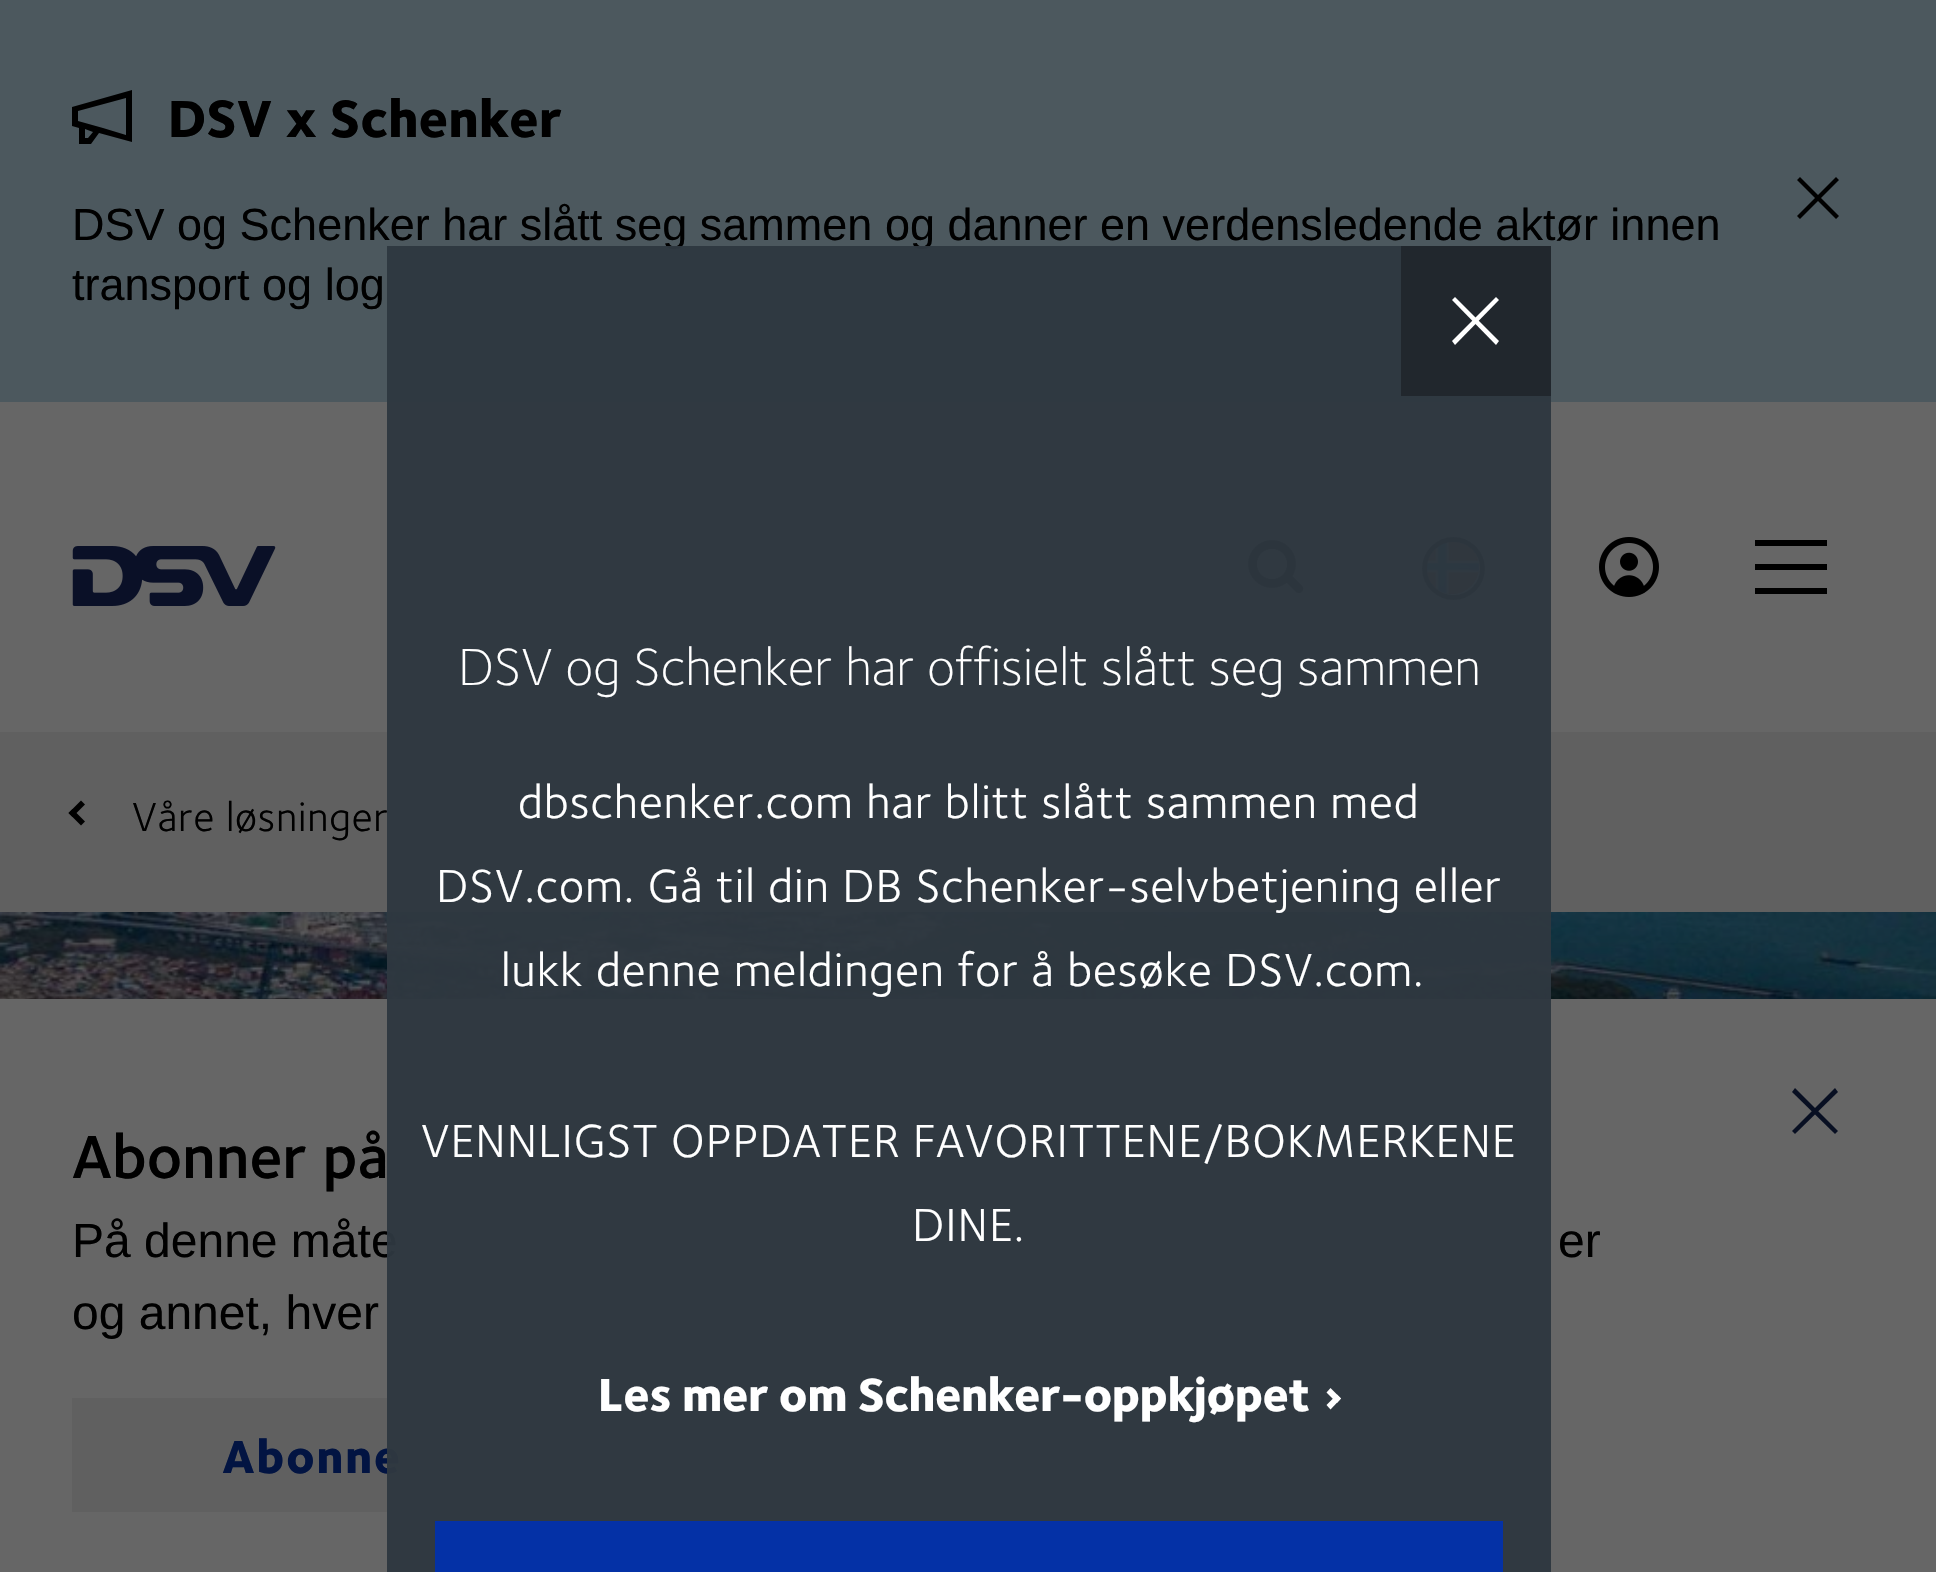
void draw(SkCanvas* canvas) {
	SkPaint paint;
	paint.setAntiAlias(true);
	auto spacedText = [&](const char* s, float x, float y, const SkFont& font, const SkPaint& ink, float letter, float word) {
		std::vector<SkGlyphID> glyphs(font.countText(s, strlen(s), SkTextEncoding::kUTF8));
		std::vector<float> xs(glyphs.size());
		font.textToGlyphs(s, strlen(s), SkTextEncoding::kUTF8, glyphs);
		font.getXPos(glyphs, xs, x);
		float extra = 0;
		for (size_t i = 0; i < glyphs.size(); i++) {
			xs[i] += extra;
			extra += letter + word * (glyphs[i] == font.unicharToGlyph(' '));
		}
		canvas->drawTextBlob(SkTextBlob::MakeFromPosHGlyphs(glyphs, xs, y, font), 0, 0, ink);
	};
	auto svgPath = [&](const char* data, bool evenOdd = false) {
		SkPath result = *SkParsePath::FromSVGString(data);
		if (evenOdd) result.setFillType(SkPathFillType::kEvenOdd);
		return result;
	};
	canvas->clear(0xff666666);
	paint.setColor(0xff4c585e);
	canvas->drawRect(SkRect::MakeXYWH(0, 0, 1936, 402), paint);
	paint.setColor(0xff000000);
	canvas->drawPath(svgPath("M132 90V142L99 133L91 144H79V128L72 126V107ZM103 128L78 121V111L126 98V135ZM85 129V138H88L93 132Z", true), paint);
	SkFont f1(fontMgr->matchFamilyStyle("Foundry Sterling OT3", SkFontStyle(800, SkFontStyle::kNormal_Width, SkFontStyle::kUpright_Slant)), 54);
	f1.setSubpixel(true);
	canvas->drawString("DSV x Schenker", 168, 137, f1, paint);
	SkFont f2(fontMgr->matchFamilyStyle("Liberation Sans", SkFontStyle::Normal()), 45);
	f2.setSubpixel(true);
	canvas->drawString("DSV og Schenker har slått seg sammen og danner en verdensledende aktør innen", 72, 240, f2, paint);
	canvas->drawString("transport og log", 72, 300, f2, paint);
	canvas->drawPath(svgPath("M1815 198L1797 216L1800 219L1818 201L1836 219L1839 216L1821 198L1839 180L1836 177L1818 195L1800 177L1797 180Z"), paint);
	canvas->drawImageRect(SkImages::DeferredFromEncodedData(SkData::MakeFromFileName("img1.png")), SkRect::MakeXYWH(72, 546, 204, 60), SkSamplingOptions());
	canvas->drawImageRect(SkImages::DeferredFromEncodedData(SkData::MakeFromFileName("img2.png")), SkRect::MakeXYWH(1248, 540, 56, 54), SkSamplingOptions());
	paint.setColor(0xff292929);
	canvas->drawCircle(1452, 567, 27, paint);
	canvas->drawImageRect(SkImages::DeferredFromEncodedData(SkData::MakeFromFileName("img3.png")), SkRect::MakeXYWH(1427, 542, 52, 52), SkSamplingOptions());
	paint.setStroke(true);
	paint.setStrokeWidth(5);
	paint.setColor(0xff000000);
	canvas->drawCircle(1453.5, 568.5, 29, paint);
	canvas->drawImageRect(SkImages::DeferredFromEncodedData(SkData::MakeFromFileName("img4.png")), SkRect::MakeXYWH(1599, 537, 60, 60), SkSamplingOptions());
	paint.setStroke(false);
	canvas->drawRect(SkRect::MakeXYWH(1755, 540, 72, 6), paint);
	canvas->drawRect(SkRect::MakeXYWH(1755, 564, 72, 6), paint);
	canvas->drawRect(SkRect::MakeXYWH(1755, 588, 72, 6), paint);
	paint.setColor(0xff606060);
	canvas->drawRect(SkRect::MakeXYWH(0, 732, 1936, 180), paint);
	paint.setColor(0xff000000);
	canvas->drawPath(svgPath("M85 821.5L81 825.5L68.5 813L72.5 809Z"), paint);
	canvas->drawPath(svgPath("M85 804.5L72.5 817L68.5 813L81 800.5Z"), paint);
	SkFont f3(fontMgr->matchFamilyStyle("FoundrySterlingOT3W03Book", SkFontStyle::Normal()), 42);
	f3.setSubpixel(true);
	spacedText("Våre løsninger", 132, 831, f3, paint, 0.8, 0);
	canvas->drawImageRect(SkImages::DeferredFromEncodedData(SkData::MakeFromFileName("img5.png")), SkRect::MakeXYWH(0, 912, 1936, 87), SkSamplingOptions());
	paint.setMaskFilter(SkMaskFilter::MakeBlur(kNormal_SkBlurStyle, 64.5));
	canvas->drawRect(SkRect::MakeXYWH(84, 1083, 1770, 405), paint);
	paint.setMaskFilter(nullptr);
	paint.setColor(0xff666666);
	canvas->drawRect(SkRect::MakeXYWH(0, 999, 1936, 573), paint);
	SkFont f4(fontMgr->matchFamilyStyle("Liberation Sans", SkFontStyle::Normal()), 48);
	f4.setSubpixel(true);
	paint.setColor(0xff000000);
	canvas->drawString("På denne måte", 72, 1257, f4, paint);
	paint.setColor(0xff606060);
	canvas->drawRect(SkRect::MakeXYWH(72, 1398, 594, 114), paint);
	SkFont f5(fontMgr->matchFamilyStyle("Foundry Sterling OT3", SkFontStyle(800, SkFontStyle::kNormal_Width, SkFontStyle::kUpright_Slant)), 48);
	f5.setSubpixel(true);
	paint.setColor(0xff021442);
	spacedText("Abonne", 222, 1473, f5, paint, 1.5, 0);
	paint.setColor(0xf52e373f);
	canvas->drawRect(SkRect::MakeXYWH(387, 246, 1164, 1326), paint);
	paint.setColor(0xff21272d);
	canvas->drawRect(SkRect::MakeXYWH(1401, 246, 150, 150), paint);
	paint.setColor(0xffffffff);
	canvas->drawPath(svgPath("M1455 297L1499 341L1496 345L1452 300Z"), paint);
	canvas->drawPath(svgPath("M1452 341L1496 297L1499 300L1455 345Z"), paint);
	SkFont f6(fontMgr->matchFamilyStyle("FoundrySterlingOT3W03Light", SkFontStyle(300, SkFontStyle::kNormal_Width, SkFontStyle::kUpright_Slant)), 54);
	f6.setSubpixel(true);
	canvas->drawString("DSV og Schenker har offisielt slått seg sammen", 458, 685, f6, paint);
	SkFont f7(fontMgr->matchFamilyStyle("FoundrySterlingOT3W03Book", SkFontStyle::Normal()), 48);
	f7.setSubpixel(true);
	spacedText("dbschenker.com har blitt slått sammen med", 518, 818, f7, paint, 0.95, 0);
	spacedText("DSV.com. Gå til din DB Schenker-selvbetjening eller", 436, 902, f7, paint, 0.95, 0);
	spacedText("lukk denne meldingen for å besøke DSV.com.", 501, 986, f7, paint, 0.95, 0);
	spacedText("VENNLIGST OPPDATER FAVORITTENE/BOKMERKENE", 421, 1157, f7, paint, 0.95, 0);
	spacedText("DINE.", 912, 1241, f7, paint, 0.95, 0);
	spacedText("Les mer om Schenker-oppkjøpet", 598, 1411, f5, paint, -0.5, 0);
	canvas->drawPath(svgPath("M1326.5 1392.5L1330.5 1388L1341 1398.5L1337 1403Z"), paint);
	canvas->drawPath(svgPath("M1326.5 1405L1337 1394.5L1341 1398.5L1330.5 1409.5Z"), paint);
	paint.setColor(0xff0431a6);
	canvas->drawRect(SkRect::MakeXYWH(435, 1521, 1068, 51), paint);
	paint.setColor(0xff080f22);
	canvas->drawPath(svgPath("M1795 1088L1838 1131L1835 1134L1792 1092Z"), paint);
	canvas->drawPath(svgPath("M1792 1131L1835 1088L1838 1092L1795 1134Z"), paint);
	SkFont f8(fontMgr->matchFamilyStyle("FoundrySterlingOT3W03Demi", SkFontStyle(600, SkFontStyle::kNormal_Width, SkFontStyle::kUpright_Slant)), 63);
	f8.setSubpixel(true);
	paint.setColor(0xff000000);
	canvas->drawString("Abonner på", 72, 1178, f8, paint);
	canvas->drawString("er", 1558, 1257, f4, paint);
	canvas->drawString("og annet, hver", 72, 1329, f4, paint);
}
